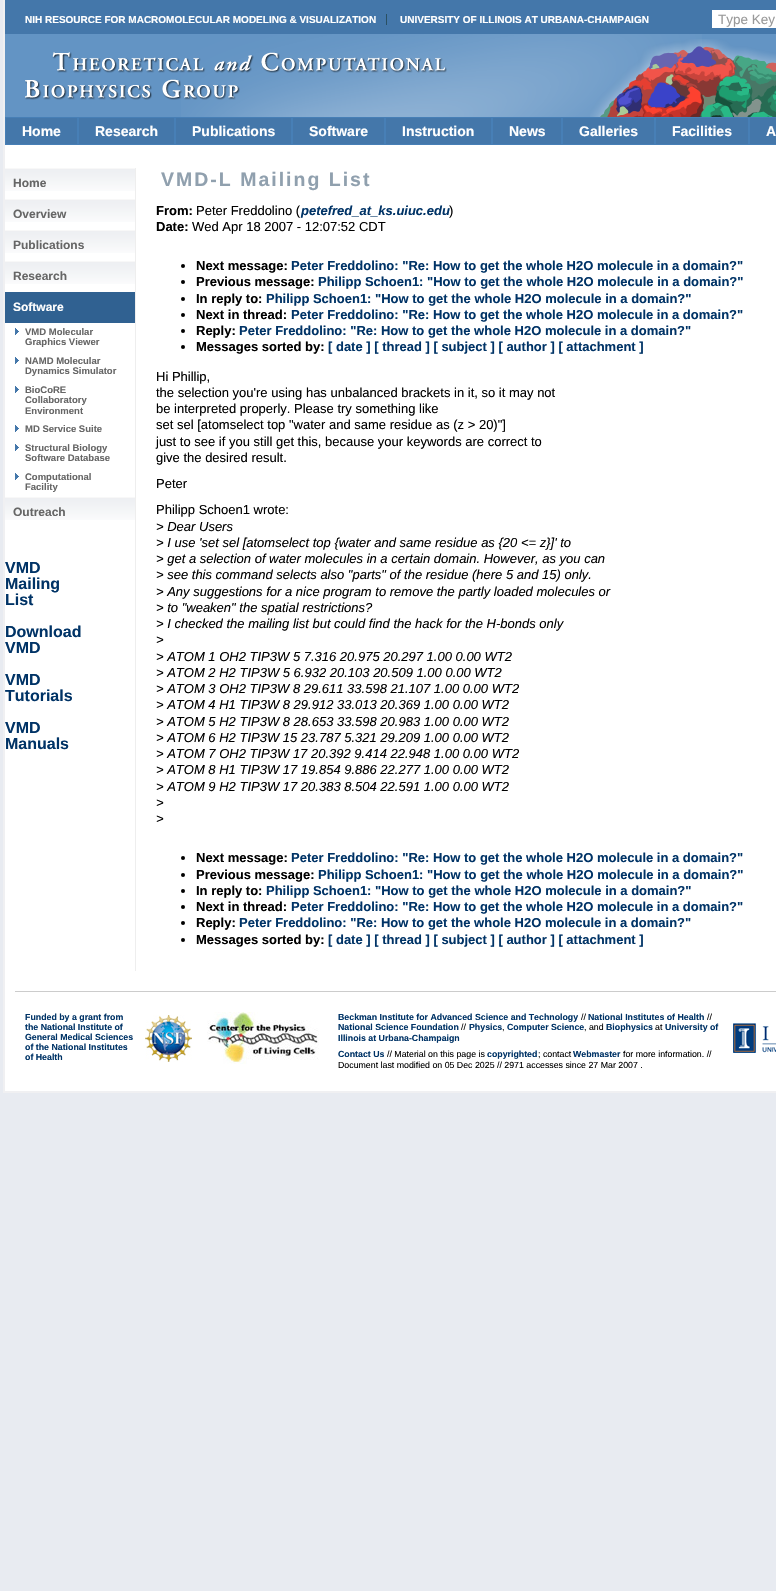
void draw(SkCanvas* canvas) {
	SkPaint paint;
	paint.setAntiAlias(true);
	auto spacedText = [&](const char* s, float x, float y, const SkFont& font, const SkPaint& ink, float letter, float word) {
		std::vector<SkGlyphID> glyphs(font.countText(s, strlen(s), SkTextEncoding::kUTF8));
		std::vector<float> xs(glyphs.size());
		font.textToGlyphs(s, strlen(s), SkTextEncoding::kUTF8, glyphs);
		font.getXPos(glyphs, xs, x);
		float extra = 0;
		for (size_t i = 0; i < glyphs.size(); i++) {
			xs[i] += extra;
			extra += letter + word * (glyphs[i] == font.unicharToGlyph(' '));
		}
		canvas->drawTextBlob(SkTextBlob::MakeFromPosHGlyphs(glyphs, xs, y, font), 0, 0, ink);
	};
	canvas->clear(0xffe8ebf1);
	paint.setColor(0xffffffff);
	canvas->drawRect(SkRect::MakeXYWH(5, 145, 771, 946), paint);
	paint.setColor(0xfff0f0f2);
	canvas->drawRect(SkRect::MakeXYWH(3, 1091, 773, 2), paint);
	canvas->drawRect(SkRect::MakeXYWH(3, 0, 2, 1093), paint);
	paint.setColor(0xff6394c4);
	canvas->drawRect(SkRect::MakeXYWH(5, 34, 771, 83), paint);
	canvas->drawImageRect(SkImages::DeferredFromEncodedData(SkData::MakeFromFileName("img1.png")), SkRect::MakeXYWH(181, 34, 521, 83), SkSamplingOptions());
	paint.setColor(0xff4477aa);
	canvas->drawRect(SkRect::MakeXYWH(5, 0, 771, 34), paint);
	SkFont f1(fontMgr->matchFamilyStyle("Liberation Sans", SkFontStyle::Bold()), 10);
	f1.setSubpixel(true);
	paint.setColor(0xffffffff);
	canvas->drawString("NIH RESOURCE FOR MACROMOLECULAR MODELING & VISUALIZATION", 25, 23, f1, paint);
	paint.setColor(0xff2a5063);
	canvas->drawRect(SkRect::MakeXYWH(386, 14, 1, 11), paint);
	paint.setColor(0xffffffff);
	canvas->drawString("UNIVERSITY OF ILLINOIS AT URBANA-CHAMPAIGN", 400, 23, f1, paint);
	canvas->drawRect(SkRect::MakeXYWH(712, 10, 64, 18), paint);
	SkFont f2(fontMgr->matchFamilyStyle("Liberation Sans", SkFontStyle::Normal()), 13.5);
	f2.setSubpixel(true);
	paint.setColor(0xff999999);
	canvas->drawString("Type Key", 718, 24, f2, paint);
	canvas->drawImageRect(SkImages::DeferredFromEncodedData(SkData::MakeFromFileName("img2.png")), SkRect::MakeXYWH(590, 39, 186, 78), SkSamplingOptions());
	canvas->drawImageRect(SkImages::DeferredFromEncodedData(SkData::MakeFromFileName("img3.png")), SkRect::MakeXYWH(25, 52, 422, 48), SkSamplingOptions());
	paint.setColor(0xff4477aa);
	canvas->drawRect(SkRect::MakeXYWH(6, 118, 770, 26), paint);
	paint.setStroke(true);
	paint.setStrokeWidth(1);
	paint.setColor(0xff477fb6);
	canvas->drawRect(SkRect::MakeXYWH(5.5, 117.5, 72, 27), paint);
	SkFont f3(fontMgr->matchFamilyStyle("Liberation Sans", SkFontStyle::Bold()), 14);
	f3.setSubpixel(true);
	paint.setStroke(false);
	paint.setColor(0xffffffff);
	canvas->drawString("Home", 22, 136, f3, paint);
	paint.setStroke(true);
	paint.setColor(0xff477fb6);
	canvas->drawRect(SkRect::MakeXYWH(78.5, 117.5, 96, 27), paint);
	paint.setStroke(false);
	paint.setColor(0xffffffff);
	canvas->drawString("Research", 95, 136, f3, paint);
	paint.setStroke(true);
	paint.setColor(0xff477fb6);
	canvas->drawRect(SkRect::MakeXYWH(175.5, 117.5, 116, 27), paint);
	paint.setStroke(false);
	paint.setColor(0xffffffff);
	canvas->drawString("Publications", 192, 136, f3, paint);
	paint.setStroke(true);
	paint.setColor(0xff477fb6);
	canvas->drawRect(SkRect::MakeXYWH(292.5, 117.5, 92, 27), paint);
	paint.setStroke(false);
	paint.setColor(0xffffffff);
	canvas->drawString("Software", 309, 136, f3, paint);
	paint.setStroke(true);
	paint.setColor(0xff477fb6);
	canvas->drawRect(SkRect::MakeXYWH(385.5, 117.5, 106, 27), paint);
	paint.setStroke(false);
	paint.setColor(0xffffffff);
	canvas->drawString("Instruction", 402, 136, f3, paint);
	paint.setStroke(true);
	paint.setColor(0xff477fb6);
	canvas->drawRect(SkRect::MakeXYWH(492.5, 117.5, 69, 27), paint);
	paint.setStroke(false);
	paint.setColor(0xffffffff);
	canvas->drawString("News", 509, 136, f3, paint);
	paint.setStroke(true);
	paint.setColor(0xff477fb6);
	canvas->drawRect(SkRect::MakeXYWH(562.5, 117.5, 92, 27), paint);
	paint.setStroke(false);
	paint.setColor(0xffffffff);
	canvas->drawString("Galleries", 579, 136, f3, paint);
	paint.setStroke(true);
	paint.setColor(0xff477fb6);
	canvas->drawRect(SkRect::MakeXYWH(655.5, 117.5, 93, 27), paint);
	paint.setStroke(false);
	paint.setColor(0xffffffff);
	canvas->drawString("Facilities", 672, 136, f3, paint);
	paint.setStroke(true);
	paint.setColor(0xff477fb6);
	canvas->drawRect(SkRect::MakeXYWH(749.5, 117.5, 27, 27), paint);
	paint.setStroke(false);
	paint.setColor(0xffffffff);
	canvas->drawString("A", 766, 136, f3, paint);
	canvas->drawImageRect(SkImages::DeferredFromEncodedData(SkData::MakeFromFileName("img4.png")), SkRect::MakeXYWH(5, 168, 130, 23), SkSamplingOptions());
	SkFont f4(fontMgr->matchFamilyStyle("Liberation Sans", SkFontStyle::Bold()), 12);
	f4.setSubpixel(true);
	paint.setColor(0xff666666);
	canvas->drawString("Home", 13, 187, f4, paint);
	canvas->drawImageRect(SkImages::DeferredFromEncodedData(SkData::MakeFromFileName("img4.png")), SkRect::MakeXYWH(5, 199, 130, 23), SkSamplingOptions());
	canvas->drawString("Overview", 13, 218, f4, paint);
	canvas->drawImageRect(SkImages::DeferredFromEncodedData(SkData::MakeFromFileName("img4.png")), SkRect::MakeXYWH(5, 230, 130, 23), SkSamplingOptions());
	canvas->drawString("Publications", 13, 249, f4, paint);
	canvas->drawImageRect(SkImages::DeferredFromEncodedData(SkData::MakeFromFileName("img4.png")), SkRect::MakeXYWH(5, 261, 130, 23), SkSamplingOptions());
	canvas->drawString("Research", 13, 280, f4, paint);
	paint.setColor(0xff306191);
	canvas->drawRect(SkRect::MakeXYWH(5, 292, 130, 31), paint);
	paint.setColor(0xffffffff);
	canvas->drawString("Software", 13, 311, f4, paint);
	canvas->drawImageRect(SkImages::DeferredFromEncodedData(SkData::MakeFromFileName("img5.png")), SkRect::MakeXYWH(15, 328, 4, 7), SkSamplingOptions());
	SkFont f5(fontMgr->matchFamilyStyle("Liberation Sans", SkFontStyle::Bold()), 9.5);
	f5.setSubpixel(true);
	paint.setColor(0xff666666);
	canvas->drawString("VMD Molecular", 25, 335, f5, paint);
	canvas->drawString("Graphics Viewer", 25, 345, f5, paint);
	canvas->drawImageRect(SkImages::DeferredFromEncodedData(SkData::MakeFromFileName("img5.png")), SkRect::MakeXYWH(15, 357, 4, 7), SkSamplingOptions());
	canvas->drawString("NAMD Molecular", 25, 364, f5, paint);
	canvas->drawString("Dynamics Simulator", 25, 374, f5, paint);
	canvas->drawImageRect(SkImages::DeferredFromEncodedData(SkData::MakeFromFileName("img5.png")), SkRect::MakeXYWH(15, 386, 4, 7), SkSamplingOptions());
	canvas->drawString("BioCoRE", 25, 393, f5, paint);
	canvas->drawString("Collaboratory", 25, 403, f5, paint);
	canvas->drawString("Environment", 25, 414, f5, paint);
	canvas->drawImageRect(SkImages::DeferredFromEncodedData(SkData::MakeFromFileName("img5.png")), SkRect::MakeXYWH(15, 425, 4, 7), SkSamplingOptions());
	canvas->drawString("MD Service Suite", 25, 432, f5, paint);
	canvas->drawImageRect(SkImages::DeferredFromEncodedData(SkData::MakeFromFileName("img5.png")), SkRect::MakeXYWH(15, 444, 4, 7), SkSamplingOptions());
	canvas->drawString("Structural Biology", 25, 451, f5, paint);
	canvas->drawString("Software Database", 25, 461, f5, paint);
	canvas->drawImageRect(SkImages::DeferredFromEncodedData(SkData::MakeFromFileName("img5.png")), SkRect::MakeXYWH(15, 473, 4, 7), SkSamplingOptions());
	canvas->drawString("Computational", 25, 480, f5, paint);
	canvas->drawString("Facility", 25, 490, f5, paint);
	canvas->drawImageRect(SkImages::DeferredFromEncodedData(SkData::MakeFromFileName("img4.png")), SkRect::MakeXYWH(5, 497, 130, 23), SkSamplingOptions());
	canvas->drawString("Outreach", 13, 516, f4, paint);
	SkFont f6(fontMgr->matchFamilyStyle("Liberation Sans", SkFontStyle::Bold()), 16);
	f6.setSubpixel(true);
	paint.setColor(0xff003366);
	canvas->drawString("VMD", 5, 573, f6, paint);
	canvas->drawString("Mailing", 5, 589, f6, paint);
	canvas->drawString("List", 5, 605, f6, paint);
	canvas->drawString("Download", 5, 637, f6, paint);
	canvas->drawString("VMD", 5, 653, f6, paint);
	canvas->drawString("VMD", 5, 685, f6, paint);
	canvas->drawString("Tutorials", 5, 701, f6, paint);
	canvas->drawString("VMD", 5, 733, f6, paint);
	canvas->drawString("Manuals", 5, 749, f6, paint);
	paint.setColor(0xffeeeeee);
	canvas->drawRect(SkRect::MakeXYWH(135, 168, 1, 803), paint);
	SkFont f7(fontMgr->matchFamilyStyle("Liberation Sans", SkFontStyle::Bold()), 19.5);
	f7.setSubpixel(true);
	paint.setColor(0xff90a0ae);
	spacedText("VMD-L Mailing List", 161, 186, f7, paint, 2, 0);
	SkFont f8(fontMgr->matchFamilyStyle("Liberation Sans", SkFontStyle::Bold()), 13);
	f8.setSubpixel(true);
	paint.setColor(0xff000000);
	canvas->drawString("From:", 156, 215, f8, paint);
	SkFont f9(fontMgr->matchFamilyStyle("Liberation Sans", SkFontStyle::Normal()), 13);
	f9.setSubpixel(true);
	canvas->drawString("Peter Freddolino (", 196, 215, f9, paint);
	SkFont f10(fontMgr->matchFamilyStyle("Liberation Sans", SkFontStyle::BoldItalic()), 13);
	f10.setSubpixel(true);
	paint.setColor(0xff003366);
	canvas->drawString("petefred_at_ks.uiuc.edu", 301, 215, f10, paint);
	paint.setColor(0xff000000);
	canvas->drawString(")", 449, 215, f9, paint);
	canvas->drawString("Date:", 156, 231, f8, paint);
	canvas->drawString("Wed Apr 18 2007 - 12:07:52 CDT", 192, 231, f9, paint);
	canvas->drawCircle(183, 266, 2, paint);
	canvas->drawString("Next message:", 196, 270, f8, paint);
	paint.setColor(0xff003366);
	canvas->drawString("Peter Freddolino: \"Re: How to get the whole H2O molecule in a domain?\"", 291, 270, f8, paint);
	paint.setColor(0xff000000);
	canvas->drawCircle(183, 282, 2, paint);
	canvas->drawString("Previous message:", 196, 286, f8, paint);
	paint.setColor(0xff003366);
	canvas->drawString("Philipp Schoen1: \"How to get the whole H2O molecule in a domain?\"", 318, 286, f8, paint);
	paint.setColor(0xff000000);
	canvas->drawCircle(183, 299, 2, paint);
	canvas->drawString("In reply to:", 196, 303, f8, paint);
	paint.setColor(0xff003366);
	canvas->drawString("Philipp Schoen1: \"How to get the whole H2O molecule in a domain?\"", 266, 303, f8, paint);
	paint.setColor(0xff000000);
	canvas->drawCircle(183, 315, 2, paint);
	canvas->drawString("Next in thread:", 196, 319, f8, paint);
	paint.setColor(0xff003366);
	canvas->drawString("Peter Freddolino: \"Re: How to get the whole H2O molecule in a domain?\"", 291, 319, f8, paint);
	paint.setColor(0xff000000);
	canvas->drawCircle(183, 331, 2, paint);
	canvas->drawString("Reply:", 196, 335, f8, paint);
	paint.setColor(0xff003366);
	canvas->drawString("Peter Freddolino: \"Re: How to get the whole H2O molecule in a domain?\"", 239, 335, f8, paint);
	paint.setColor(0xff000000);
	canvas->drawCircle(183, 347, 2, paint);
	canvas->drawString("Messages sorted by:", 196, 351, f8, paint);
	paint.setColor(0xff003366);
	canvas->drawString("[ date ] [ thread ] [ subject ] [ author ] [ attachment ]", 328, 351, f8, paint);
	paint.setColor(0xff000000);
	canvas->drawString("Hi Phillip,", 156, 381, f9, paint);
	canvas->drawString("the selection you're using has unbalanced brackets in it, so it may not", 156, 397, f9, paint);
	canvas->drawString("be interpreted properly. Please try something like", 156, 413, f9, paint);
	canvas->drawString("set sel [atomselect top \"water and same residue as (z > 20)\"]", 156, 429, f9, paint);
	canvas->drawString("just to see if you still get this, because your keywords are correct to", 156, 446, f9, paint);
	canvas->drawString("give the desired result.", 156, 462, f9, paint);
	canvas->drawString("Peter", 156, 488, f9, paint);
	canvas->drawString("Philipp Schoen1 wrote:", 156, 514, f9, paint);
	SkFont f11(fontMgr->matchFamilyStyle("Liberation Sans", SkFontStyle::Italic()), 13);
	f11.setSubpixel(true);
	canvas->drawString("> Dear Users", 156, 531, f11, paint);
	canvas->drawString("> I use 'set sel [atomselect top {water and same residue as {20 <= z}]' to", 156, 547, f11, paint);
	canvas->drawString("> get a selection of water molecules in a certain domain. However, as you can", 156, 563, f11, paint);
	canvas->drawString("> see this command selects also \"parts\" of the residue (here 5 and 15) only.", 156, 579, f11, paint);
	canvas->drawString("> Any suggestions for a nice program to remove the partly loaded molecules or", 156, 596, f11, paint);
	canvas->drawString("> to \"weaken\" the spatial restrictions?", 156, 612, f11, paint);
	canvas->drawString("> I checked the mailing list but could find the hack for the H-bonds only", 156, 628, f11, paint);
	canvas->drawString(">", 156, 644, f11, paint);
	canvas->drawString("> ATOM 1 OH2 TIP3W 5 7.316 20.975 20.297 1.00 0.00 WT2", 156, 661, f11, paint);
	canvas->drawString("> ATOM 2 H2 TIP3W 5 6.932 20.103 20.509 1.00 0.00 WT2", 156, 677, f11, paint);
	canvas->drawString("> ATOM 3 OH2 TIP3W 8 29.611 33.598 21.107 1.00 0.00 WT2", 156, 693, f11, paint);
	canvas->drawString("> ATOM 4 H1 TIP3W 8 29.912 33.013 20.369 1.00 0.00 WT2", 156, 709, f11, paint);
	canvas->drawString("> ATOM 5 H2 TIP3W 8 28.653 33.598 20.983 1.00 0.00 WT2", 156, 726, f11, paint);
	canvas->drawString("> ATOM 6 H2 TIP3W 15 23.787 5.321 29.209 1.00 0.00 WT2", 156, 742, f11, paint);
	canvas->drawString("> ATOM 7 OH2 TIP3W 17 20.392 9.414 22.948 1.00 0.00 WT2", 156, 758, f11, paint);
	canvas->drawString("> ATOM 8 H1 TIP3W 17 19.854 9.886 22.277 1.00 0.00 WT2", 156, 774, f11, paint);
	canvas->drawString("> ATOM 9 H2 TIP3W 17 20.383 8.504 22.591 1.00 0.00 WT2", 156, 791, f11, paint);
	canvas->drawString(">", 156, 807, f11, paint);
	canvas->drawString(">", 156, 823, f11, paint);
	canvas->drawCircle(183, 858, 2, paint);
	canvas->drawString("Next message:", 196, 862, f8, paint);
	paint.setColor(0xff003366);
	canvas->drawString("Peter Freddolino: \"Re: How to get the whole H2O molecule in a domain?\"", 291, 862, f8, paint);
	paint.setColor(0xff000000);
	canvas->drawCircle(183, 875, 2, paint);
	canvas->drawString("Previous message:", 196, 879, f8, paint);
	paint.setColor(0xff003366);
	canvas->drawString("Philipp Schoen1: \"How to get the whole H2O molecule in a domain?\"", 318, 879, f8, paint);
	paint.setColor(0xff000000);
	canvas->drawCircle(183, 891, 2, paint);
	canvas->drawString("In reply to:", 196, 895, f8, paint);
	paint.setColor(0xff003366);
	canvas->drawString("Philipp Schoen1: \"How to get the whole H2O molecule in a domain?\"", 266, 895, f8, paint);
	paint.setColor(0xff000000);
	canvas->drawCircle(183, 907, 2, paint);
	canvas->drawString("Next in thread:", 196, 911, f8, paint);
	paint.setColor(0xff003366);
	canvas->drawString("Peter Freddolino: \"Re: How to get the whole H2O molecule in a domain?\"", 291, 911, f8, paint);
	paint.setColor(0xff000000);
	canvas->drawCircle(183, 923, 2, paint);
	canvas->drawString("Reply:", 196, 927, f8, paint);
	paint.setColor(0xff003366);
	canvas->drawString("Peter Freddolino: \"Re: How to get the whole H2O molecule in a domain?\"", 239, 927, f8, paint);
	paint.setColor(0xff000000);
	canvas->drawCircle(183, 940, 2, paint);
	canvas->drawString("Messages sorted by:", 196, 944, f8, paint);
	paint.setColor(0xff003366);
	canvas->drawString("[ date ] [ thread ] [ subject ] [ author ] [ attachment ]", 328, 944, f8, paint);
	paint.setColor(0xffcccccc);
	canvas->drawRect(SkRect::MakeXYWH(15, 991, 761, 1), paint);
	SkFont f12(fontMgr->matchFamilyStyle("Liberation Sans", SkFontStyle::Bold()), 8.8);
	f12.setSubpixel(true);
	paint.setColor(0xff003366);
	canvas->drawString("Funded by a grant from", 25, 1020, f12, paint);
	canvas->drawString("the National Institute of", 25, 1030, f12, paint);
	canvas->drawString("General Medical Sciences", 25, 1040, f12, paint);
	canvas->drawString("of the National Institutes", 25, 1050, f12, paint);
	canvas->drawString("of Health", 25, 1060, f12, paint);
	canvas->drawImageRect(SkImages::DeferredFromEncodedData(SkData::MakeFromFileName("img6.png")), SkRect::MakeXYWH(145, 1015, 47, 47), SkSamplingOptions());
	canvas->drawImageRect(SkImages::DeferredFromEncodedData(SkData::MakeFromFileName("img7.png")), SkRect::MakeXYWH(207, 1012, 112, 52), SkSamplingOptions());
	canvas->drawString("Beckman Institute for Advanced Science and Technology", 338, 1020, f12, paint);
	SkFont f13(fontMgr->matchFamilyStyle("Liberation Sans", SkFontStyle::Normal()), 8.8);
	f13.setSubpixel(true);
	paint.setColor(0xff000000);
	canvas->drawString("//", 581, 1020, f13, paint);
	paint.setColor(0xff003366);
	canvas->drawString("National Institutes of Health", 588, 1020, f12, paint);
	paint.setColor(0xff000000);
	canvas->drawString("//", 707, 1020, f13, paint);
	paint.setColor(0xff003366);
	canvas->drawString("National Science Foundation", 338, 1030, f12, paint);
	paint.setColor(0xff000000);
	canvas->drawString("//", 461, 1030, f13, paint);
	paint.setColor(0xff003366);
	canvas->drawString("Physics", 469, 1030, f12, paint);
	paint.setColor(0xff000000);
	canvas->drawString(",", 502, 1030, f13, paint);
	paint.setColor(0xff003366);
	canvas->drawString("Computer Science", 507, 1030, f12, paint);
	paint.setColor(0xff000000);
	canvas->drawString(", and", 584, 1030, f13, paint);
	paint.setColor(0xff003366);
	canvas->drawString("Biophysics", 606, 1030, f12, paint);
	paint.setColor(0xff000000);
	canvas->drawString("at", 655, 1030, f13, paint);
	paint.setColor(0xff003366);
	canvas->drawString("University of", 665, 1030, f12, paint);
	canvas->drawString("Illinois at Urbana-Champaign", 338, 1041, f12, paint);
	canvas->drawString("Contact Us", 338, 1057, f12, paint);
	paint.setColor(0xff000000);
	canvas->drawString("// Material on this page is", 387, 1057, f13, paint);
	paint.setColor(0xff003366);
	canvas->drawString("copyrighted", 487, 1057, f12, paint);
	paint.setColor(0xff000000);
	canvas->drawString("; contact", 538, 1057, f13, paint);
	paint.setColor(0xff003366);
	canvas->drawString("Webmaster", 573, 1057, f12, paint);
	paint.setColor(0xff000000);
	canvas->drawString("for more information. //", 623, 1057, f13, paint);
	canvas->drawString("Document last modified on 05 Dec 2025 // 2971 accesses since 27 Mar 2007 .", 338, 1068, f13, paint);
	canvas->drawImageRect(SkImages::DeferredFromEncodedData(SkData::MakeFromFileName("img8.png")), SkRect::MakeXYWH(733, 1023, 43, 30), SkSamplingOptions());
}
